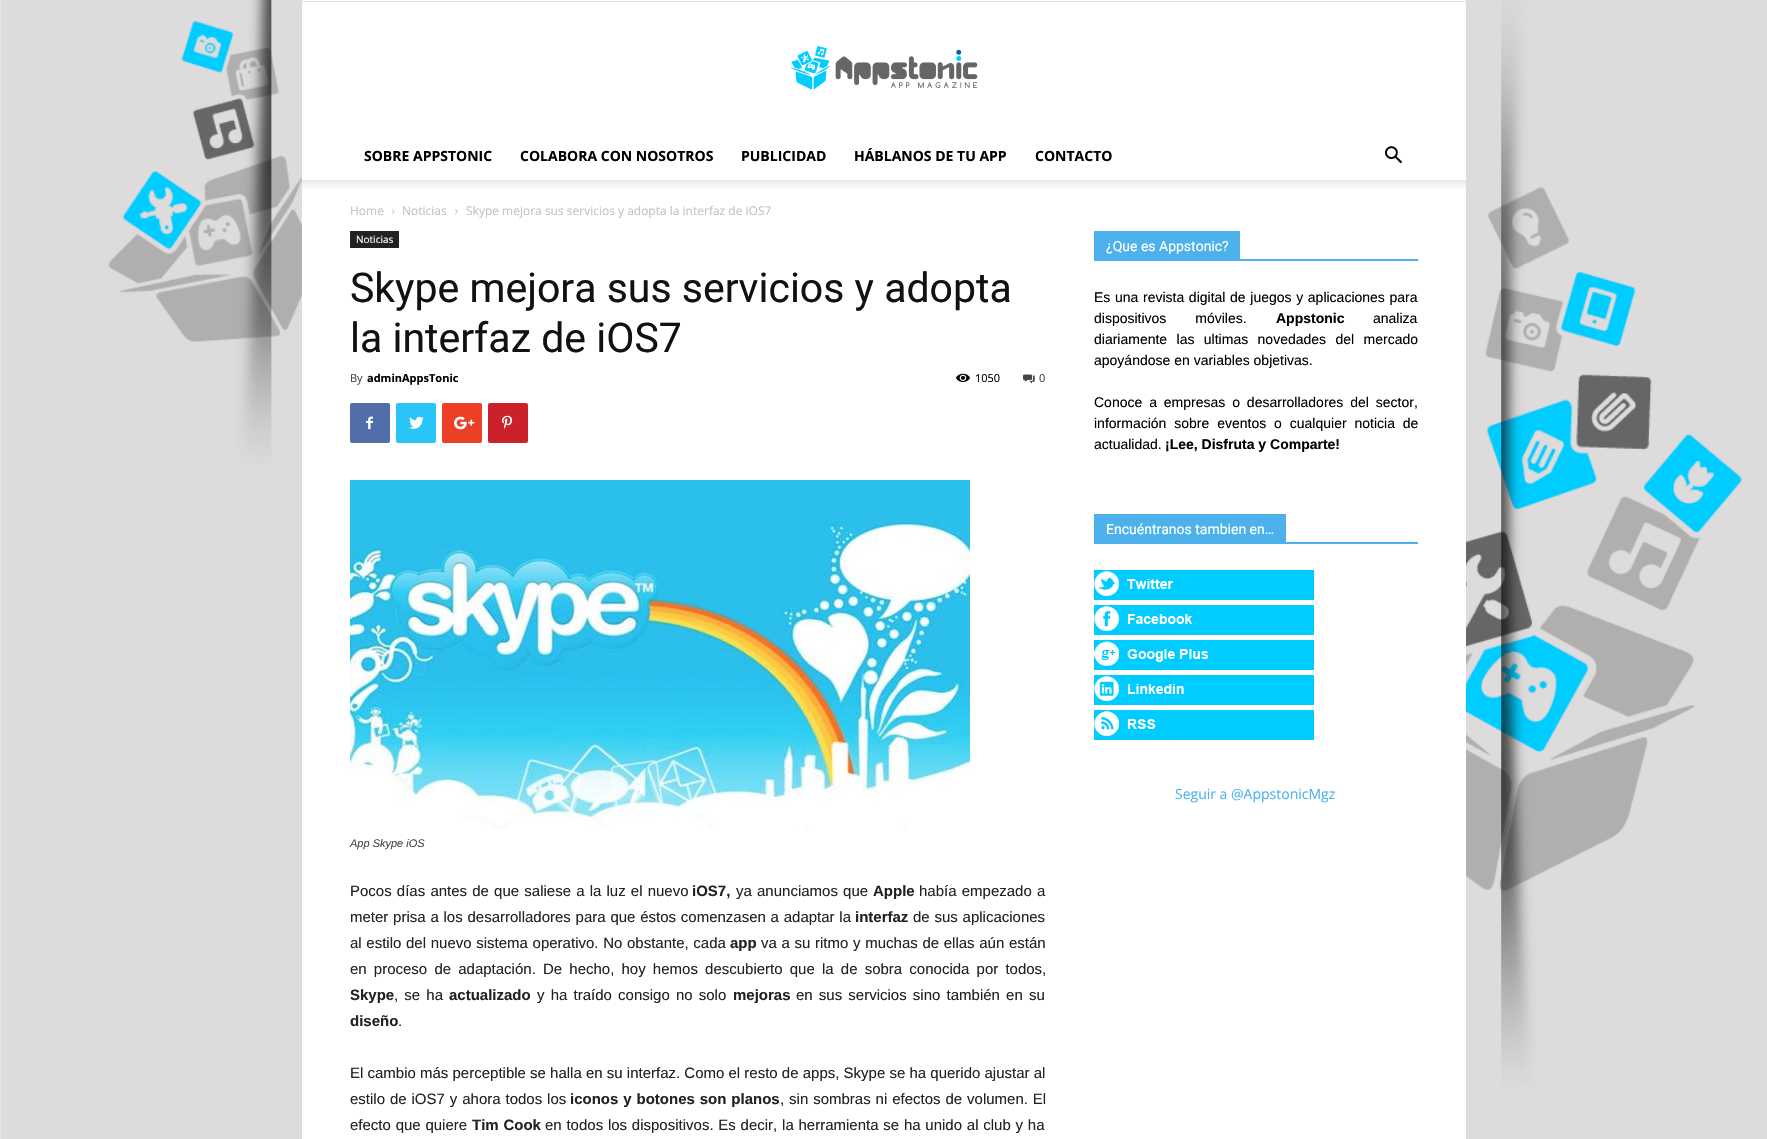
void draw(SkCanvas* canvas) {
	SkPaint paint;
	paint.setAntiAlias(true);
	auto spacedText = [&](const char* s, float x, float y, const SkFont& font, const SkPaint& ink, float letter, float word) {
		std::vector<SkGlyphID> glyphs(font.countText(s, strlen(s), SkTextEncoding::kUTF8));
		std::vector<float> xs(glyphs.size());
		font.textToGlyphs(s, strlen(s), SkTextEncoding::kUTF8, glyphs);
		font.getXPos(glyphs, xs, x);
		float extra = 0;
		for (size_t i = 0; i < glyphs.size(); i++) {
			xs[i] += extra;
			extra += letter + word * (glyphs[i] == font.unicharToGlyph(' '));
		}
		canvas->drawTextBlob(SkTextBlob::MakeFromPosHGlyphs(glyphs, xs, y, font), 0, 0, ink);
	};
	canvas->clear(0xffffffff);
	canvas->drawImageRect(SkImages::DeferredFromEncodedData(SkData::MakeFromFileName("img1.png")), SkRect::MakeXYWH(0, 0, 1767, 1139), SkSamplingOptions());
	paint.setColor(0xffffffff);
	canvas->drawRect(SkRect::MakeXYWH(302, 0, 1164, 1), paint);
	paint.setColor(0xffe0e0e0);
	canvas->drawRect(SkRect::MakeXYWH(302, 1, 1164, 1), paint);
	paint.setColor(0xffffffff);
	canvas->drawRect(SkRect::MakeXYWH(302, 2, 1164, 178), paint);
	canvas->drawImageRect(SkImages::DeferredFromEncodedData(SkData::MakeFromFileName("img2.png")), SkRect::MakeXYWH(790, 46, 188, 44), SkSamplingOptions());
	SkFont f1(fontMgr->matchFamilyStyle("Open Sans", SkFontStyle::Bold()), 14);
	f1.setSubpixel(true);
	paint.setColor(0xff000000);
	canvas->drawString("SOBRE APPSTONIC", 364, 161, f1, paint);
	canvas->drawString("COLABORA CON NOSOTROS", 520, 161, f1, paint);
	canvas->drawString("PUBLICIDAD", 741, 161, f1, paint);
	canvas->drawString("HÁBLANOS DE TU APP", 854, 161, f1, paint);
	canvas->drawString("CONTACTO", 1035, 161, f1, paint);
	canvas->drawImageRect(SkImages::DeferredFromEncodedData(SkData::MakeFromFileName("img3.png")), SkRect::MakeXYWH(1385, 146, 17, 18), SkSamplingOptions());
	paint.setColor(0xffffffff);
	canvas->drawRect(SkRect::MakeXYWH(302, 180, 1164, 959), paint);
	canvas->drawImageRect(SkImages::DeferredFromEncodedData(SkData::MakeFromFileName("img4.png")), SkRect::MakeXYWH(302, 180, 1164, 9), SkSamplingOptions());
	SkFont f2(fontMgr->matchFamilyStyle("Open Sans", SkFontStyle::Normal()), 12);
	f2.setSubpixel(true);
	paint.setColor(0xffc3c3c3);
	canvas->drawString("Home", 350, 215, f2, paint);
	canvas->drawImageRect(SkImages::DeferredFromEncodedData(SkData::MakeFromFileName("img5.png")), SkRect::MakeXYWH(392, 209, 3, 5), SkSamplingOptions());
	canvas->drawString("Noticias", 402, 215, f2, paint);
	canvas->drawImageRect(SkImages::DeferredFromEncodedData(SkData::MakeFromFileName("img5.png")), SkRect::MakeXYWH(455, 209, 3, 5), SkSamplingOptions());
	canvas->drawString("Skype mejora sus servicios y adopta la interfaz de iOS7", 466, 215, f2, paint);
	paint.setColor(0xff222222);
	canvas->drawRect(SkRect::MakeXYWH(350, 231, 49, 17), paint);
	SkFont f3(fontMgr->matchFamilyStyle("Open Sans", SkFontStyle::Normal()), 10);
	f3.setSubpixel(true);
	paint.setColor(0xffffffff);
	canvas->drawString("Noticias", 356, 243, f3, paint);
	SkFont f4(fontMgr->matchFamilyStyle("Roboto", SkFontStyle::Normal()), 41);
	f4.setSubpixel(true);
	paint.setColor(0xff111111);
	canvas->drawString("Skype mejora sus servicios y adopta", 350, 302, f4, paint);
	canvas->drawString("la interfaz de iOS7", 350, 352, f4, paint);
	SkFont f5(fontMgr->matchFamilyStyle("Open Sans", SkFontStyle::Normal()), 11);
	f5.setSubpixel(true);
	paint.setColor(0xff444444);
	canvas->drawString("By", 350, 382, f5, paint);
	SkFont f6(fontMgr->matchFamilyStyle("Open Sans", SkFontStyle::Bold()), 11);
	f6.setSubpixel(true);
	paint.setColor(0xff000000);
	canvas->drawString("adminAppsTonic", 367, 382, f6, paint);
	canvas->drawImageRect(SkImages::DeferredFromEncodedData(SkData::MakeFromFileName("img6.png")), SkRect::MakeXYWH(956, 373, 14, 9), SkSamplingOptions());
	canvas->drawString("1050", 975, 382, f5, paint);
	canvas->drawImageRect(SkImages::DeferredFromEncodedData(SkData::MakeFromFileName("img7.png")), SkRect::MakeXYWH(1023, 374, 12, 10), SkSamplingOptions());
	paint.setColor(0xff444444);
	canvas->drawString("0", 1039, 382, f5, paint);
	paint.setColor(0xff516eab);
	canvas->drawRoundRect(SkRect::MakeXYWH(350, 403, 40, 40), 2, 2, paint);
	canvas->drawImageRect(SkImages::DeferredFromEncodedData(SkData::MakeFromFileName("img8.png")), SkRect::MakeXYWH(366, 416, 7, 14), SkSamplingOptions());
	paint.setColor(0xff29c5f6);
	canvas->drawRoundRect(SkRect::MakeXYWH(396, 403, 40, 40), 2, 2, paint);
	canvas->drawImageRect(SkImages::DeferredFromEncodedData(SkData::MakeFromFileName("img9.png")), SkRect::MakeXYWH(409, 416, 15, 13), SkSamplingOptions());
	paint.setColor(0xffeb4026);
	canvas->drawRoundRect(SkRect::MakeXYWH(442, 403, 40, 40), 2, 2, paint);
	canvas->drawImageRect(SkImages::DeferredFromEncodedData(SkData::MakeFromFileName("img10.png")), SkRect::MakeXYWH(454, 416, 21, 14), SkSamplingOptions());
	paint.setColor(0xffca212a);
	canvas->drawRoundRect(SkRect::MakeXYWH(488, 403, 40, 40), 2, 2, paint);
	canvas->drawImageRect(SkImages::DeferredFromEncodedData(SkData::MakeFromFileName("img11.png")), SkRect::MakeXYWH(502, 415, 11, 14), SkSamplingOptions());
	canvas->drawImageRect(SkImages::DeferredFromEncodedData(SkData::MakeFromFileName("img12.png")), SkRect::MakeXYWH(350, 480, 620, 349), SkSamplingOptions());
	SkFont f7(fontMgr->matchFamilyStyle("Liberation Sans", SkFontStyle::Italic()), 11);
	f7.setSubpixel(true);
	paint.setColor(0xff444444);
	canvas->drawString("App Skype iOS", 350, 847, f7, paint);
	SkFont f8(fontMgr->matchFamilyStyle("Liberation Sans", SkFontStyle::Normal()), 15);
	f8.setSubpixel(true);
	paint.setColor(0xff222222);
	spacedText("Pocos días antes de que saliese a la luz el nuevo", 350, 896, f8, paint, 0, 1);
	SkFont f9(fontMgr->matchFamilyStyle("Liberation Sans", SkFontStyle::Bold()), 15);
	f9.setSubpixel(true);
	canvas->drawString("iOS7,", 692, 896, f9, paint);
	spacedText("ya anunciamos que", 736, 896, f8, paint, 0, 1);
	canvas->drawString("Apple", 873, 896, f9, paint);
	spacedText("había empezado a", 919, 896, f8, paint, 0, 1);
	spacedText("meter prisa a los desarrolladores para que éstos comenzasen a adaptar la", 350, 922, f8, paint, 0, 0.6);
	canvas->drawString("interfaz", 855, 922, f9, paint);
	spacedText("de sus aplicaciones", 913, 922, f8, paint, 0, 0.6);
	spacedText("al estilo del nuevo sistema operativo. No obstante, cada", 350, 948, f8, paint, 0, 0.5);
	canvas->drawString("app", 730, 948, f9, paint);
	spacedText("va a su ritmo y muchas de ellas aún están", 761, 948, f8, paint, 0, 0.5);
	spacedText("en proceso de adaptación. De hecho, hoy hemos descubierto que la de sobra conocida por todos,", 350, 974, f8, paint, 0, 3);
	canvas->drawString("Skype", 350, 1000, f9, paint);
	spacedText(", se ha", 394, 1000, f8, paint, 0, 2);
	canvas->drawString("actualizado", 449, 1000, f9, paint);
	spacedText("y ha traído consigo no solo", 537, 1000, f8, paint, 0, 2);
	canvas->drawString("mejoras", 733, 1000, f9, paint);
	spacedText("en sus servicios sino también en su", 796, 1000, f8, paint, 0, 2);
	canvas->drawString("diseño", 350, 1026, f9, paint);
	canvas->drawString(".", 398, 1026, f8, paint);
	canvas->drawString("El cambio más perceptible se halla en su interfaz. Como el resto de apps, Skype se ha querido ajustar al", 350, 1078, f8, paint);
	spacedText("estilo de iOS7 y ahora todos los", 350, 1104, f8, paint, 0, 0.75);
	spacedText("iconos y botones son planos", 570, 1104, f9, paint, 0, 0.75);
	spacedText(", sin sombras ni efectos de volumen. El", 780, 1104, f8, paint, 0, 0.75);
	spacedText("efecto que quiere", 350, 1130, f8, paint, 0, 0.6);
	spacedText("Tim Cook", 472, 1130, f9, paint, 0, 0.6);
	spacedText("en todos los dispositivos. Es decir, la herramienta se ha unido al club y ha", 545, 1130, f8, paint, 0, 0.6);
	paint.setColor(0xff4db2ec);
	canvas->drawRect(SkRect::MakeXYWH(1094, 259, 324, 2), paint);
	canvas->drawRect(SkRect::MakeXYWH(1094, 231, 146, 28), paint);
	SkFont f10(fontMgr->matchFamilyStyle("Roboto", SkFontStyle::Normal()), 14);
	f10.setSubpixel(true);
	paint.setColor(0xffffffff);
	canvas->drawString("¿Que es Appstonic?", 1106, 251, f10, paint);
	SkFont f11(fontMgr->matchFamilyStyle("Liberation Sans", SkFontStyle::Normal()), 14);
	f11.setSubpixel(true);
	paint.setColor(0xff000000);
	spacedText("Es una revista digital de juegos y aplicaciones para", 1094, 302, f11, paint, 0, 0.75);
	spacedText("dispositivos móviles.", 1094, 323, f11, paint, 0, 25);
	SkFont f12(fontMgr->matchFamilyStyle("Liberation Sans", SkFontStyle::Bold()), 14);
	f12.setSubpixel(true);
	canvas->drawString("Appstonic", 1276, 323, f12, paint);
	canvas->drawString("analiza", 1373, 323, f11, paint);
	spacedText("diariamente las ultimas novedades del mercado", 1094, 344, f11, paint, 0, 5.5);
	canvas->drawString("apoyándose en variables objetivas.", 1094, 365, f11, paint);
	spacedText("Conoce a empresas o desarrolladores del sector,", 1094, 407, f11, paint, 0, 3);
	spacedText("información sobre eventos o cualquier noticia de", 1094, 428, f11, paint, 0, 4);
	canvas->drawString("actualidad.", 1094, 449, f11, paint);
	canvas->drawString("¡Lee, Disfruta y Comparte!", 1165, 449, f12, paint);
	paint.setColor(0xff4db2ec);
	canvas->drawRect(SkRect::MakeXYWH(1094, 542, 324, 2), paint);
	canvas->drawRect(SkRect::MakeXYWH(1094, 514, 192, 28), paint);
	paint.setColor(0xffffffff);
	canvas->drawString("Encuéntranos tambien en…", 1106, 534, f10, paint);
	canvas->drawImageRect(SkImages::DeferredFromEncodedData(SkData::MakeFromFileName("img13.png")), SkRect::MakeXYWH(1094, 570, 220, 30), SkSamplingOptions());
	canvas->drawImageRect(SkImages::DeferredFromEncodedData(SkData::MakeFromFileName("img14.png")), SkRect::MakeXYWH(1094, 605, 220, 30), SkSamplingOptions());
	canvas->drawImageRect(SkImages::DeferredFromEncodedData(SkData::MakeFromFileName("img15.png")), SkRect::MakeXYWH(1094, 640, 220, 30), SkSamplingOptions());
	canvas->drawImageRect(SkImages::DeferredFromEncodedData(SkData::MakeFromFileName("img16.png")), SkRect::MakeXYWH(1094, 675, 220, 30), SkSamplingOptions());
	canvas->drawImageRect(SkImages::DeferredFromEncodedData(SkData::MakeFromFileName("img17.png")), SkRect::MakeXYWH(1094, 710, 220, 30), SkSamplingOptions());
	SkFont f13(fontMgr->matchFamilyStyle("Open Sans", SkFontStyle::Normal()), 14);
	f13.setSubpixel(true);
	paint.setColor(0xff4db2ec);
	canvas->drawString("Seguir a @AppstonicMgz", 1175, 799, f13, paint);
}
